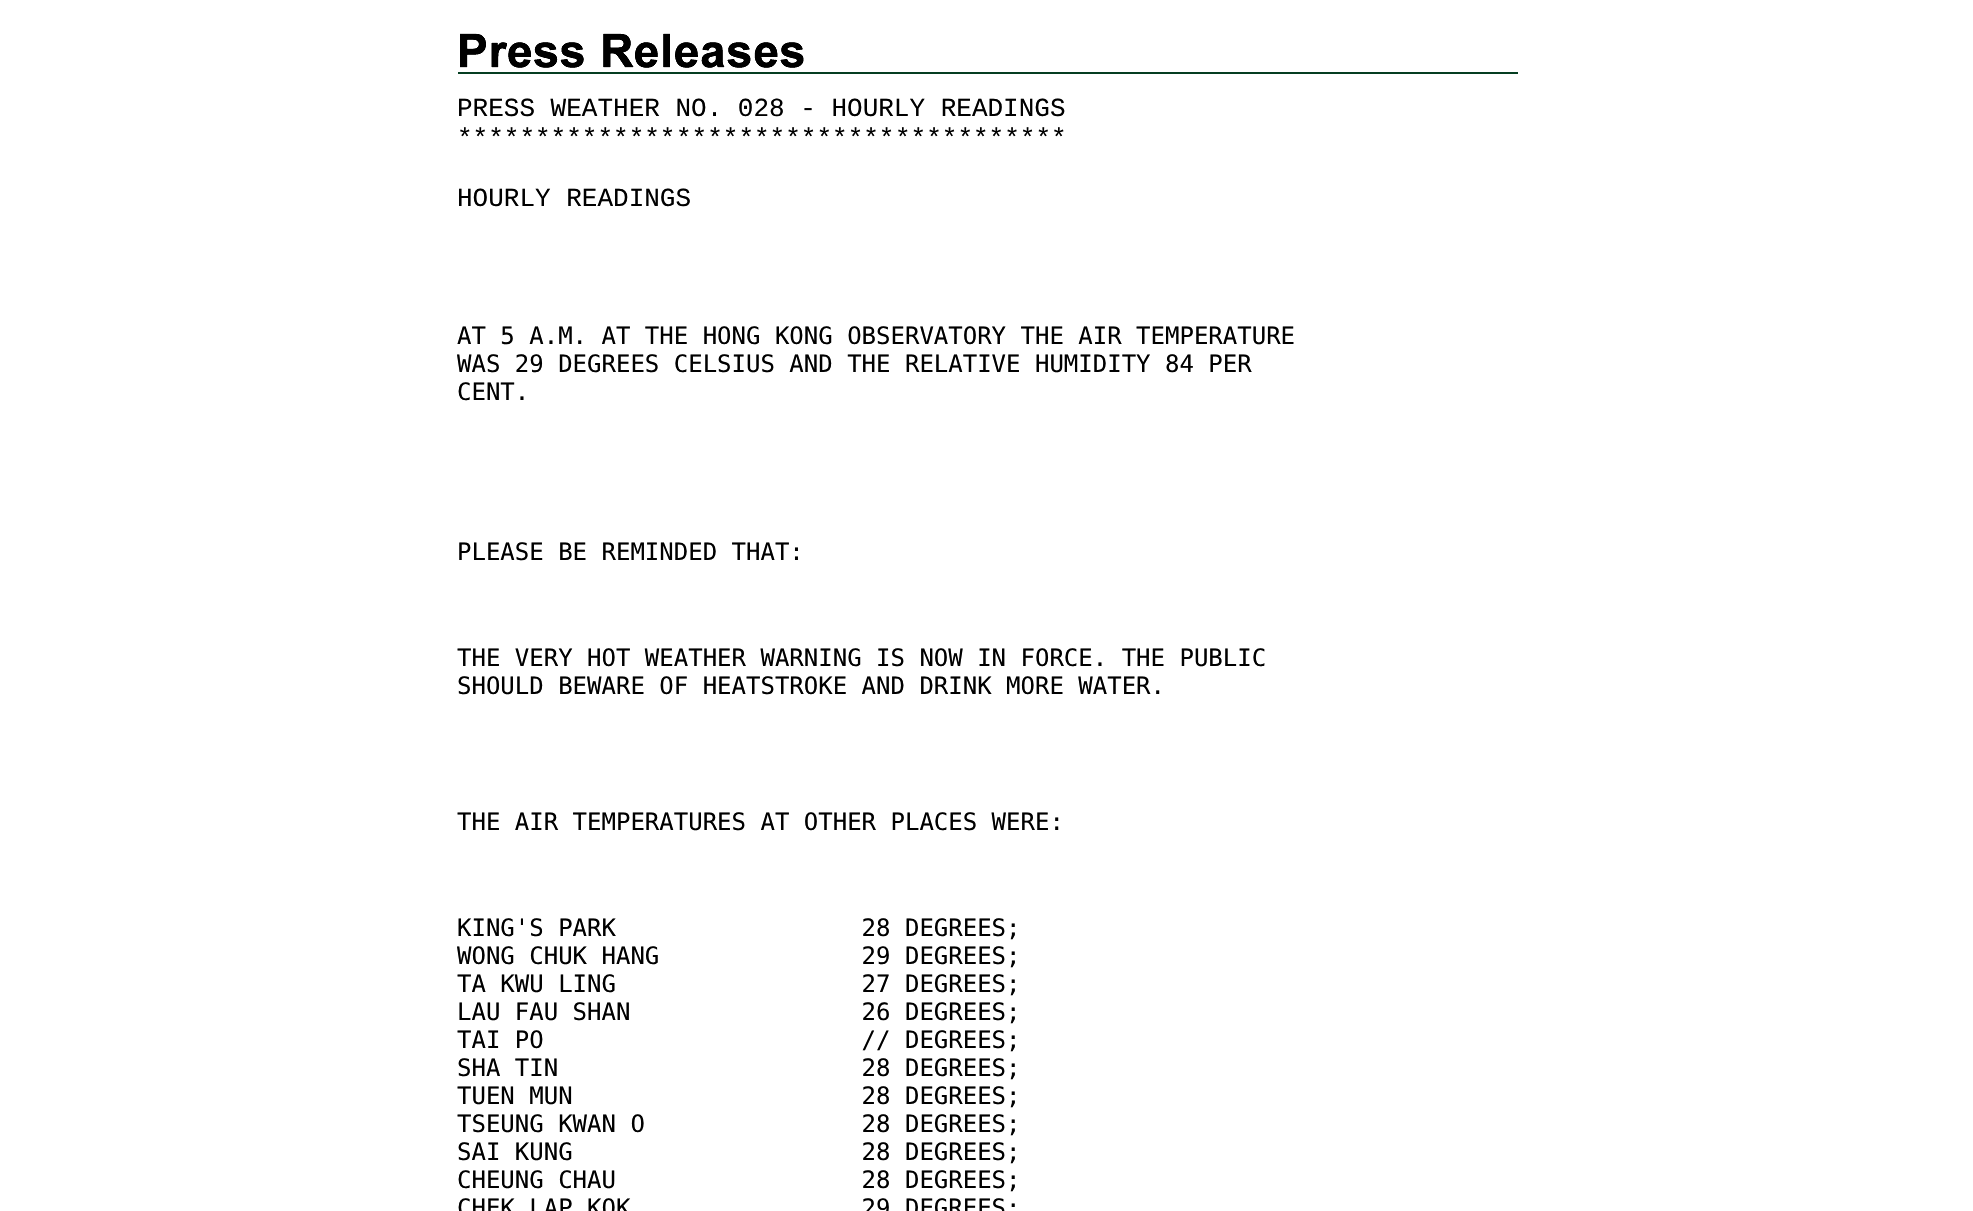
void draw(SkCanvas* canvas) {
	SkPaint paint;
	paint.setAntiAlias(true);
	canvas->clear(0xffffffff);
	paint.setColor(0xff053e21);
	canvas->drawRect(SkRect::MakeXYWH(458, 72, 1060, 2), paint);
	canvas->drawImageRect(SkImages::DeferredFromEncodedData(SkData::MakeFromFileName("img1.png")), SkRect::MakeXYWH(460, 33, 344, 35), SkSamplingOptions());
	SkFont f1(fontMgr->matchFamilyStyle("Liberation Mono", SkFontStyle::Normal()), 26);
	f1.setSubpixel(true);
	paint.setColor(0xff000000);
	canvas->drawString("PRESS WEATHER NO. 028 - HOURLY READINGS", 457, 116, f1, paint);
	canvas->drawString("**************", 457, 146, f1, paint);
	canvas->drawString("**************", 676, 146, f1, paint);
	canvas->drawString("***********", 895, 146, f1, paint);
	canvas->drawString("HOURLY READINGS", 457, 206, f1, paint);
	SkFont f2(fontMgr->matchFamilyStyle("DejaVu Sans Mono", SkFontStyle::Normal()), 24);
	f2.setSubpixel(true);
	canvas->drawString("AT 5 A.M. AT THE HONG KONG OBSERVATORY THE AIR TEMPERATURE", 457, 344, f2, paint);
	canvas->drawString("WAS 29 DEGREES CELSIUS AND THE RELATIVE HUMIDITY 84 PER", 457, 372, f2, paint);
	canvas->drawString("CENT.", 457, 400, f2, paint);
	canvas->drawString("PLEASE BE REMINDED THAT:", 457, 560, f2, paint);
	canvas->drawString("THE VERY HOT WEATHER WARNING IS NOW IN FORCE. THE PUBLIC", 457, 666, f2, paint);
	canvas->drawString("SHOULD BEWARE OF HEATSTROKE AND DRINK MORE WATER.", 457, 694, f2, paint);
	canvas->drawString("THE AIR TEMPERATURES AT OTHER PLACES WERE:", 457, 830, f2, paint);
	canvas->drawString("KING'S PARK                 28 DEGREES;", 457, 936, f2, paint);
	canvas->drawString("WONG CHUK HANG              29 DEGREES;", 457, 964, f2, paint);
	canvas->drawString("TA KWU LING                 27 DEGREES;", 457, 992, f2, paint);
	canvas->drawString("LAU FAU SHAN                26 DEGREES;", 457, 1020, f2, paint);
	canvas->drawString("TAI PO                      // DEGREES;", 457, 1048, f2, paint);
	canvas->drawString("SHA TIN                     28 DEGREES;", 457, 1076, f2, paint);
	canvas->drawString("TUEN MUN                    28 DEGREES;", 457, 1104, f2, paint);
	canvas->drawString("TSEUNG KWAN O               28 DEGREES;", 457, 1132, f2, paint);
	canvas->drawString("SAI KUNG                    28 DEGREES;", 457, 1160, f2, paint);
	canvas->drawString("CHEUNG CHAU                 28 DEGREES;", 457, 1188, f2, paint);
	canvas->drawString("CHEK LAP KOK                29 DEGREES;", 457, 1216, f2, paint);
}
